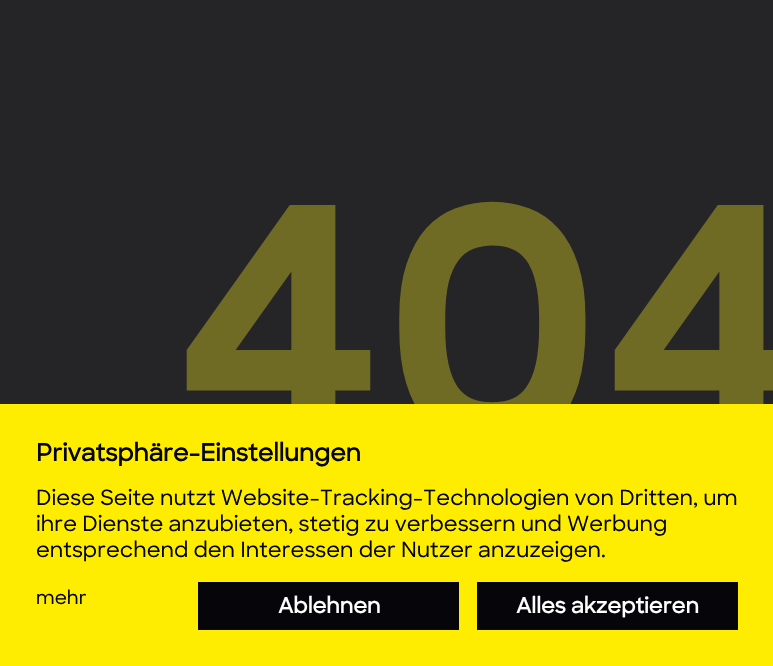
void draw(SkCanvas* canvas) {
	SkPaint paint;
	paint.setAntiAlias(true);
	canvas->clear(0xff252527);
	SkFont f1(fontMgr->matchFamilyStyle("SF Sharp", SkFontStyle::Bold()), 326);
	f1.setSubpixel(true);
	paint.setColor(0xff706b24);
	canvas->drawString("404", 174, 443, f1, paint);
	paint.setColor(0xffffed00);
	canvas->drawRect(SkRect::MakeXYWH(0, 404, 773, 262), paint);
	SkFont f2(fontMgr->matchFamilyStyle("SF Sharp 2", SkFontStyle::Bold()), 23.6);
	f2.setSubpixel(true);
	paint.setColor(0xff05050a);
	canvas->drawString("Privatsphäre-Einstellungen", 36, 461, f2, paint);
	SkFont f3(fontMgr->matchFamilyStyle("SF Sharp", SkFontStyle(500, SkFontStyle::kNormal_Width, SkFontStyle::kUpright_Slant)), 21);
	f3.setSubpixel(true);
	canvas->drawString("Diese Seite nutzt Website-Tracking-Technologien von Dritten, um", 36, 505, f3, paint);
	canvas->drawString("ihre Dienste anzubieten, stetig zu verbessern und Werbung", 36, 531, f3, paint);
	canvas->drawString("entsprechend den Interessen der Nutzer anzuzeigen.", 36, 557, f3, paint);
	SkFont f4(fontMgr->matchFamilyStyle("SF Sharp", SkFontStyle(500, SkFontStyle::kNormal_Width, SkFontStyle::kUpright_Slant)), 18.5);
	f4.setSubpixel(true);
	canvas->drawString("mehr", 36, 604, f4, paint);
	canvas->drawRect(SkRect::MakeXYWH(198, 582, 261, 48), paint);
	SkFont f5(fontMgr->matchFamilyStyle("SF Sharp 2", SkFontStyle::Bold()), 21);
	f5.setSubpixel(true);
	paint.setColor(0xffffffff);
	canvas->drawString("Ablehnen", 278, 613, f5, paint);
	paint.setColor(0xff05050a);
	canvas->drawRect(SkRect::MakeXYWH(477, 582, 261, 48), paint);
	paint.setColor(0xffffffff);
	canvas->drawString("Alles akzeptieren", 516, 613, f5, paint);
}
